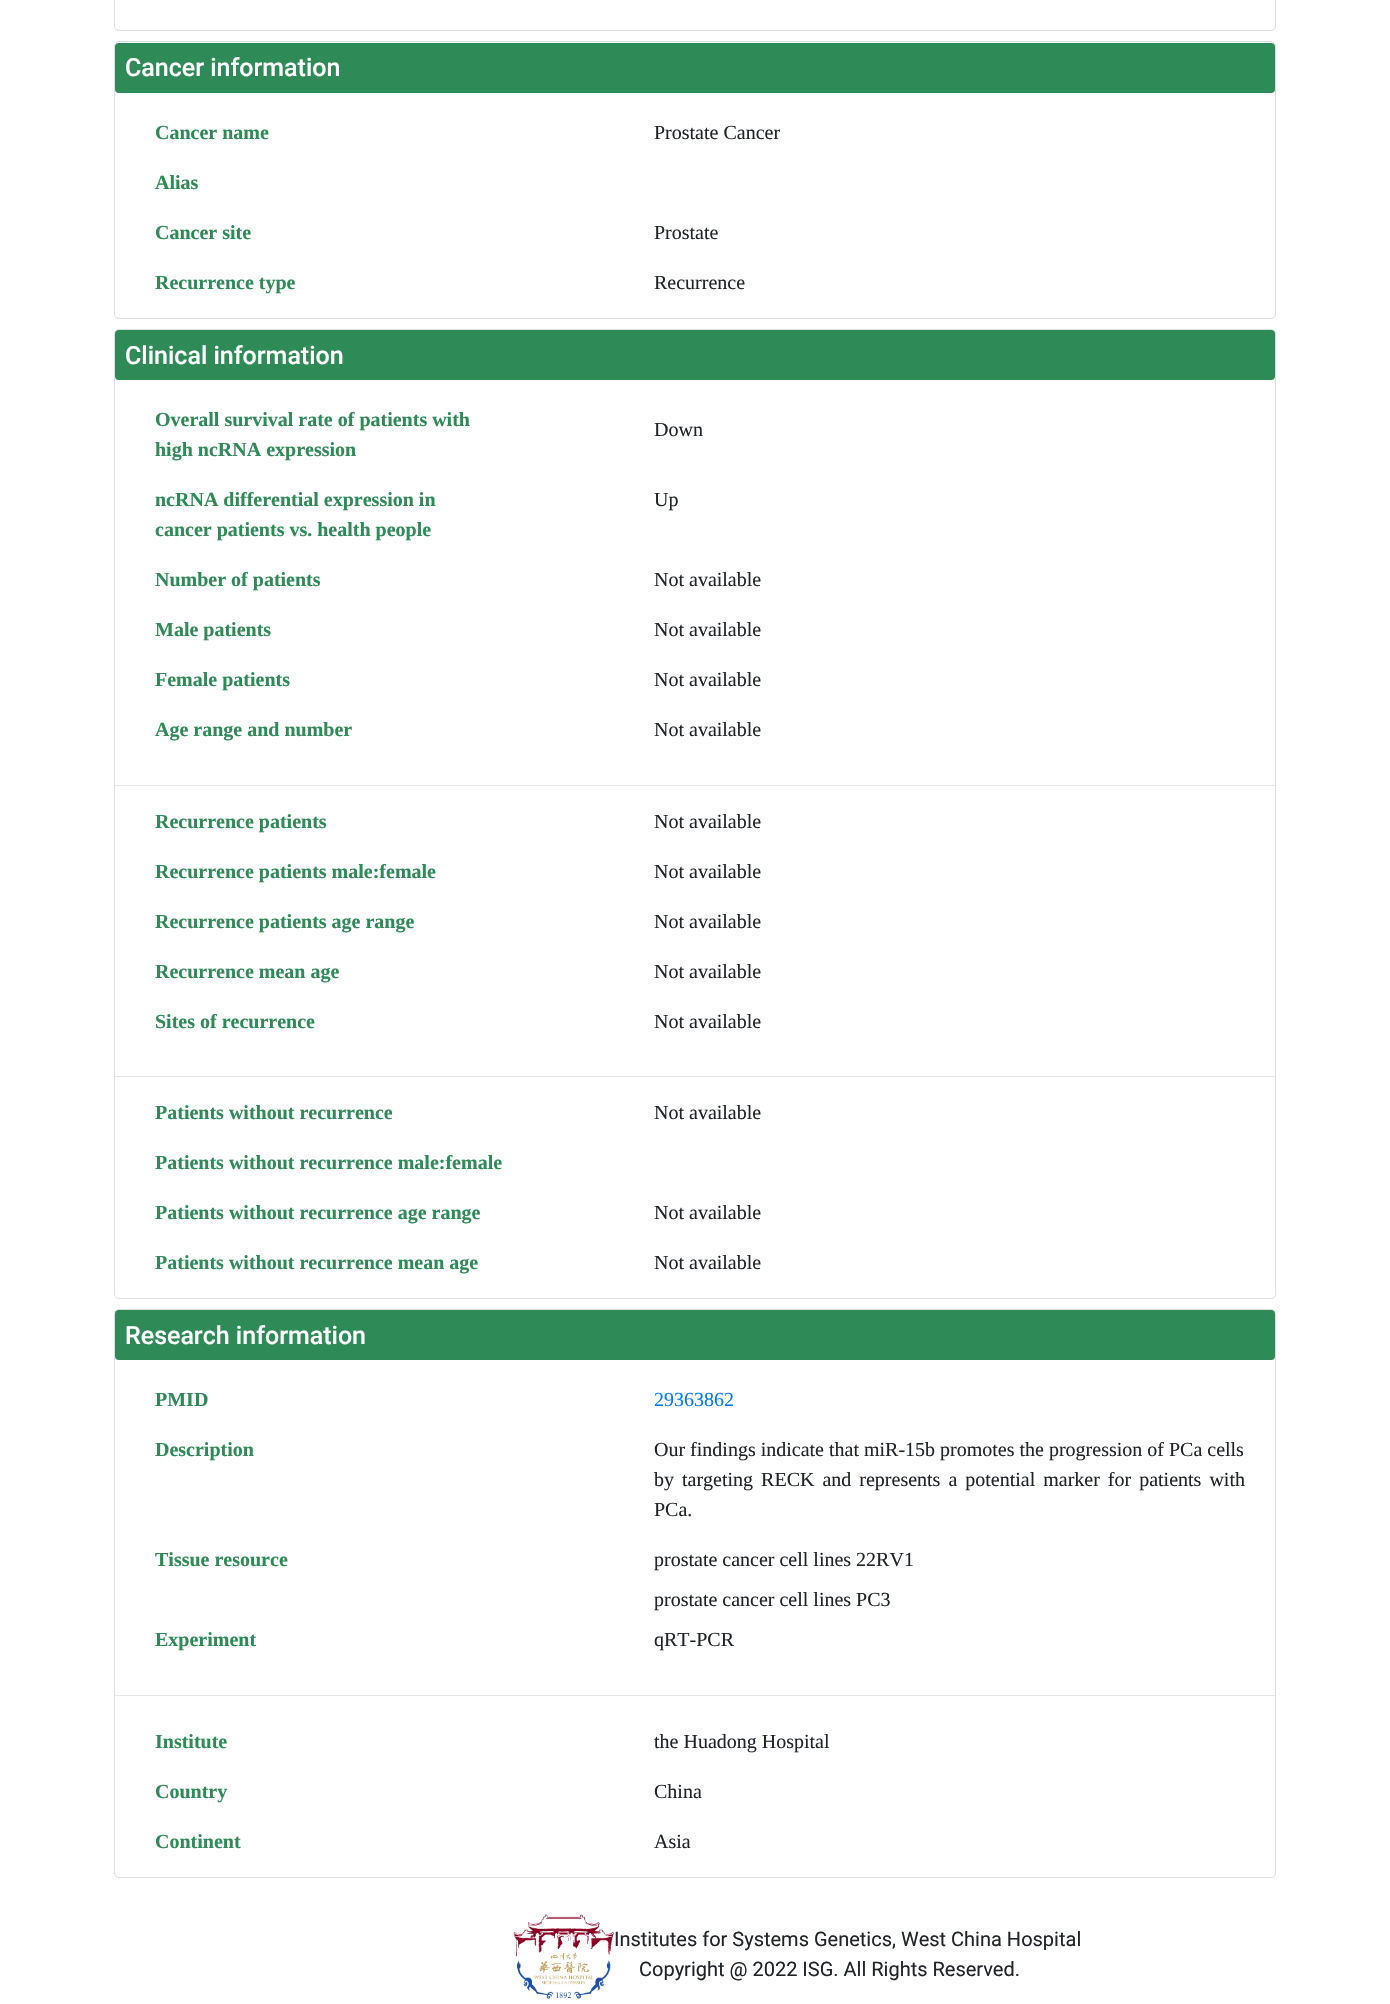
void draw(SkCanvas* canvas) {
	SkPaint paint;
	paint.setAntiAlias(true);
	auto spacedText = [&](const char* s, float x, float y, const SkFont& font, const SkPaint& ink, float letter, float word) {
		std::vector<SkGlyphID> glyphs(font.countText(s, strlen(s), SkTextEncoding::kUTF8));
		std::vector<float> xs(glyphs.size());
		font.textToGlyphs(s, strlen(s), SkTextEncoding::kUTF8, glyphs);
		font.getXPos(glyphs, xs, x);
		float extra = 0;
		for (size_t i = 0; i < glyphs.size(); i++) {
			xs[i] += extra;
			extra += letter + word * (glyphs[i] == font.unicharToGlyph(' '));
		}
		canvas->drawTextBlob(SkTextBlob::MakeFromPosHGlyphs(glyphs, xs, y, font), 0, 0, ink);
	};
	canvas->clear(0xffffffff);
	paint.setStroke(true);
	paint.setStrokeWidth(1);
	paint.setColor(0xffdfdfdf);
	canvas->drawRoundRect(SkRect::MakeXYWH(114.5, -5.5, 1161, 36), 4.5, 4.5, paint);
	canvas->drawRoundRect(SkRect::MakeXYWH(114.5, 41.5, 1161, 277), 4.5, 4.5, paint);
	paint.setStroke(false);
	paint.setColor(0xff2e8b57);
	canvas->drawRoundRect(SkRect::MakeXYWH(115, 43, 1160, 50), 4, 4, paint);
	SkFont f1(fontMgr->matchFamilyStyle("Roboto", SkFontStyle(500, SkFontStyle::kNormal_Width, SkFontStyle::kUpright_Slant)), 25);
	f1.setSubpixel(true);
	paint.setColor(0xffffffff);
	canvas->drawString("Cancer information", 125, 76, f1, paint);
	SkFont f2(fontMgr->matchFamilyStyle("Liberation Serif", SkFontStyle::Bold()), 20);
	f2.setSubpixel(true);
	paint.setColor(0xff2e8b57);
	canvas->drawString("Cancer name", 155, 139, f2, paint);
	SkFont f3(fontMgr->matchFamilyStyle("Liberation Serif", SkFontStyle::Normal()), 20);
	f3.setSubpixel(true);
	paint.setColor(0xff212529);
	canvas->drawString("Prostate Cancer", 654, 139, f3, paint);
	paint.setColor(0xff2e8b57);
	canvas->drawString("Alias", 155, 189, f2, paint);
	canvas->drawString("Cancer site", 155, 239, f2, paint);
	paint.setColor(0xff212529);
	canvas->drawString("Prostate", 654, 239, f3, paint);
	paint.setColor(0xff2e8b57);
	canvas->drawString("Recurrence type", 155, 289, f2, paint);
	paint.setColor(0xff212529);
	canvas->drawString("Recurrence", 654, 289, f3, paint);
	paint.setStroke(true);
	paint.setColor(0xffdfdfdf);
	canvas->drawRoundRect(SkRect::MakeXYWH(114.5, 329.5, 1161, 969), 4.5, 4.5, paint);
	paint.setStroke(false);
	paint.setColor(0xff2e8b57);
	canvas->drawRoundRect(SkRect::MakeXYWH(115, 330, 1160, 50), 4, 4, paint);
	paint.setColor(0xffffffff);
	canvas->drawString("Clinical information", 125, 364, f1, paint);
	paint.setColor(0xff2e8b57);
	canvas->drawString("Overall survival rate of patients with", 155, 426, f2, paint);
	canvas->drawString("high ncRNA expression", 155, 456, f2, paint);
	paint.setColor(0xff212529);
	canvas->drawString("Down", 654, 436, f3, paint);
	paint.setColor(0xff2e8b57);
	canvas->drawString("ncRNA differential expression in", 155, 506, f2, paint);
	canvas->drawString("cancer patients vs. health people", 155, 536, f2, paint);
	paint.setColor(0xff212529);
	canvas->drawString("Up", 654, 506, f3, paint);
	paint.setColor(0xff2e8b57);
	canvas->drawString("Number of patients", 155, 586, f2, paint);
	paint.setColor(0xff212529);
	canvas->drawString("Not available", 654, 586, f3, paint);
	paint.setColor(0xff2e8b57);
	canvas->drawString("Male patients", 155, 636, f2, paint);
	paint.setColor(0xff212529);
	canvas->drawString("Not available", 654, 636, f3, paint);
	paint.setColor(0xff2e8b57);
	canvas->drawString("Female patients", 155, 686, f2, paint);
	paint.setColor(0xff212529);
	canvas->drawString("Not available", 654, 686, f3, paint);
	paint.setColor(0xff2e8b57);
	canvas->drawString("Age range and number", 155, 736, f2, paint);
	paint.setColor(0xff212529);
	canvas->drawString("Not available", 654, 736, f3, paint);
	paint.setColor(0xffe6e6e6);
	canvas->drawRect(SkRect::MakeXYWH(115, 785, 1160, 1), paint);
	paint.setColor(0xff2e8b57);
	canvas->drawString("Recurrence patients", 155, 828, f2, paint);
	paint.setColor(0xff212529);
	canvas->drawString("Not available", 654, 828, f3, paint);
	paint.setColor(0xff2e8b57);
	canvas->drawString("Recurrence patients male:female", 155, 878, f2, paint);
	paint.setColor(0xff212529);
	canvas->drawString("Not available", 654, 878, f3, paint);
	paint.setColor(0xff2e8b57);
	canvas->drawString("Recurrence patients age range", 155, 928, f2, paint);
	paint.setColor(0xff212529);
	canvas->drawString("Not available", 654, 928, f3, paint);
	paint.setColor(0xff2e8b57);
	canvas->drawString("Recurrence mean age", 155, 978, f2, paint);
	paint.setColor(0xff212529);
	canvas->drawString("Not available", 654, 978, f3, paint);
	paint.setColor(0xff2e8b57);
	canvas->drawString("Sites of recurrence", 155, 1028, f2, paint);
	paint.setColor(0xff212529);
	canvas->drawString("Not available", 654, 1028, f3, paint);
	paint.setColor(0xffe6e6e6);
	canvas->drawRect(SkRect::MakeXYWH(115, 1076, 1160, 1), paint);
	paint.setColor(0xff2e8b57);
	canvas->drawString("Patients without recurrence", 155, 1119, f2, paint);
	paint.setColor(0xff212529);
	canvas->drawString("Not available", 654, 1119, f3, paint);
	paint.setColor(0xff2e8b57);
	canvas->drawString("Patients without recurrence male:female", 155, 1169, f2, paint);
	canvas->drawString("Patients without recurrence age range", 155, 1219, f2, paint);
	paint.setColor(0xff212529);
	canvas->drawString("Not available", 654, 1219, f3, paint);
	paint.setColor(0xff2e8b57);
	canvas->drawString("Patients without recurrence mean age", 155, 1269, f2, paint);
	paint.setColor(0xff212529);
	canvas->drawString("Not available", 654, 1269, f3, paint);
	paint.setStroke(true);
	paint.setColor(0xffdfdfdf);
	canvas->drawRoundRect(SkRect::MakeXYWH(114.5, 1309.5, 1161, 568), 4.5, 4.5, paint);
	paint.setStroke(false);
	paint.setColor(0xff2e8b57);
	canvas->drawRoundRect(SkRect::MakeXYWH(115, 1310, 1160, 50), 4, 4, paint);
	paint.setColor(0xffffffff);
	canvas->drawString("Research information", 125, 1344, f1, paint);
	paint.setColor(0xff2e8b57);
	canvas->drawString("PMID", 155, 1406, f2, paint);
	paint.setColor(0xff007bff);
	canvas->drawString("29363862", 654, 1406, f3, paint);
	paint.setColor(0xff2e8b57);
	canvas->drawString("Description", 155, 1456, f2, paint);
	paint.setColor(0xff212529);
	canvas->drawString("Our findings indicate that miR-15b promotes the progression of PCa cells", 654, 1456, f3, paint);
	spacedText("by targeting RECK and represents a potential marker for patients with", 654, 1486, f3, paint, 0, 3);
	canvas->drawString("PCa.", 654, 1516, f3, paint);
	paint.setColor(0xff2e8b57);
	canvas->drawString("Tissue resource", 155, 1566, f2, paint);
	paint.setColor(0xff212529);
	canvas->drawString("prostate cancer cell lines 22RV1", 654, 1566, f3, paint);
	canvas->drawString("prostate cancer cell lines PC3", 654, 1606, f3, paint);
	paint.setColor(0xff2e8b57);
	canvas->drawString("Experiment", 155, 1646, f2, paint);
	paint.setColor(0xff212529);
	canvas->drawString("qRT-PCR", 654, 1646, f3, paint);
	paint.setColor(0xffe6e6e6);
	canvas->drawRect(SkRect::MakeXYWH(115, 1695, 1160, 1), paint);
	paint.setColor(0xff2e8b57);
	canvas->drawString("Institute", 155, 1748, f2, paint);
	paint.setColor(0xff212529);
	canvas->drawString("the Huadong Hospital", 654, 1748, f3, paint);
	paint.setColor(0xff2e8b57);
	canvas->drawString("Country", 155, 1798, f2, paint);
	paint.setColor(0xff212529);
	canvas->drawString("China", 654, 1798, f3, paint);
	paint.setColor(0xff2e8b57);
	canvas->drawString("Continent", 155, 1848, f2, paint);
	paint.setColor(0xff212529);
	canvas->drawString("Asia", 654, 1848, f3, paint);
	canvas->drawImageRect(SkImages::DeferredFromEncodedData(SkData::MakeFromFileName("img1.png")), SkRect::MakeXYWH(513, 1914, 101, 85), SkSamplingOptions());
	SkFont f4(fontMgr->matchFamilyStyle("Roboto", SkFontStyle::Normal()), 20);
	f4.setSubpixel(true);
	canvas->drawString("Institutes for Systems Genetics, West China Hospital", 614, 1946, f4, paint);
	canvas->drawString("Copyright @ 2022 ISG. All Rights Reserved.", 639, 1976, f4, paint);
}
